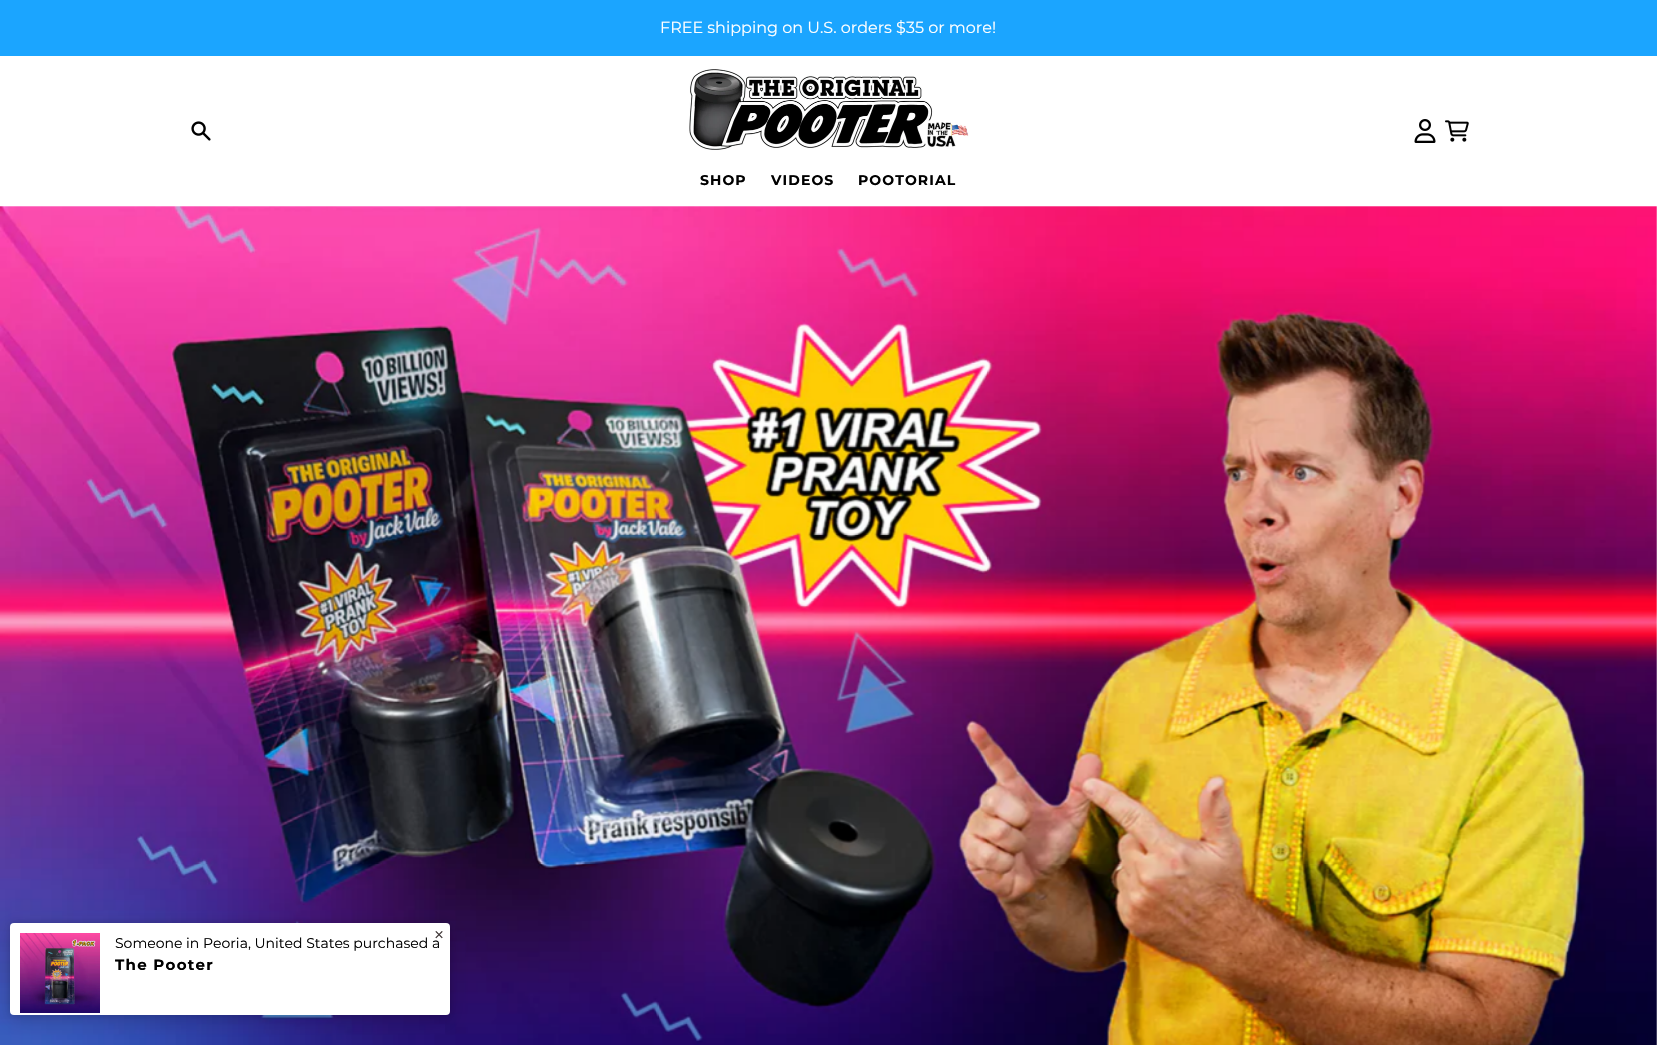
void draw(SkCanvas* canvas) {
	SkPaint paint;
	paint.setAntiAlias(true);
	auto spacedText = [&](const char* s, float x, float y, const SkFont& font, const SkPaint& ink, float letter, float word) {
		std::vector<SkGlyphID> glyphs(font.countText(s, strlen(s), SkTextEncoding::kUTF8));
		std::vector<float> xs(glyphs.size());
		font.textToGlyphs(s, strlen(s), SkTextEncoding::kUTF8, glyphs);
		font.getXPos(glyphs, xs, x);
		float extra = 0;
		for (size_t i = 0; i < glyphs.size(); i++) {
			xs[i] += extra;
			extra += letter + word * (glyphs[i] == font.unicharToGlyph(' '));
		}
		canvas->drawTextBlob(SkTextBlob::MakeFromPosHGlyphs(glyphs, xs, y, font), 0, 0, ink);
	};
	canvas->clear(0xff1ba5ff);
	SkFont f1(fontMgr->matchFamilyStyle("Montserrat", SkFontStyle::Normal()), 16);
	f1.setSubpixel(true);
	paint.setColor(0xffffffff);
	canvas->drawString("FREE shipping on U.S. orders $35 or more!", 660, 33, f1, paint);
	canvas->drawRect(SkRect::MakeXYWH(0, 56, 1657, 989), paint);
	canvas->drawImageRect(SkImages::DeferredFromEncodedData(SkData::MakeFromFileName("img1.png")), SkRect::MakeXYWH(0, 206, 1657, 839), SkSamplingOptions());
	canvas->drawImageRect(SkImages::DeferredFromEncodedData(SkData::MakeFromFileName("img2.png")), SkRect::MakeXYWH(191, 121, 20, 20), SkSamplingOptions());
	canvas->drawImageRect(SkImages::DeferredFromEncodedData(SkData::MakeFromFileName("img3.png")), SkRect::MakeXYWH(1414, 119, 22, 24), SkSamplingOptions());
	canvas->drawImageRect(SkImages::DeferredFromEncodedData(SkData::MakeFromFileName("img4.png")), SkRect::MakeXYWH(1445, 120, 24, 22), SkSamplingOptions());
	canvas->drawImageRect(SkImages::DeferredFromEncodedData(SkData::MakeFromFileName("img5.png")), SkRect::MakeXYWH(689, 69, 280, 81), SkSamplingOptions());
	SkFont f2(fontMgr->matchFamilyStyle("Montserrat", SkFontStyle::Bold()), 14);
	f2.setSubpixel(true);
	paint.setColor(0xff000000);
	spacedText("SHOP", 700, 185, f2, paint, 1.1, 0);
	spacedText("VIDEOS", 771, 185, f2, paint, 1.1, 0);
	spacedText("POOTORIAL", 858, 185, f2, paint, 1.1, 0);
	paint.setColor(0x26000000);
	paint.setMaskFilter(SkMaskFilter::MakeBlur(kNormal_SkBlurStyle, 10));
	canvas->drawRoundRect(SkRect::MakeXYWH(10, 929, 440, 92), 4, 4, paint);
	paint.setMaskFilter(nullptr);
	paint.setMaskFilter(SkMaskFilter::MakeBlur(kNormal_SkBlurStyle, 3));
	canvas->drawRoundRect(SkRect::MakeXYWH(10, 923, 440, 92), 4, 4, paint);
	paint.setMaskFilter(nullptr);
	paint.setColor(0xffffffff);
	canvas->drawRoundRect(SkRect::MakeXYWH(10, 923, 440, 92), 4, 4, paint);
	canvas->drawImageRect(SkImages::DeferredFromEncodedData(SkData::MakeFromFileName("img6.png")), SkRect::MakeXYWH(20, 933, 80, 80), SkSamplingOptions());
	SkFont f3(fontMgr->matchFamilyStyle("Montserrat", SkFontStyle::Normal()), 21);
	f3.setSubpixel(true);
	paint.setColor(0xff443c3c);
	canvas->drawString("×", 433, 942, f3, paint);
	SkFont f4(fontMgr->matchFamilyStyle("Montserrat", SkFontStyle::Normal()), 14);
	f4.setSubpixel(true);
	paint.setColor(0xff000000);
	canvas->drawString("Someone in Peoria, United States purchased a", 115, 948, f4, paint);
	SkFont f5(fontMgr->matchFamilyStyle("Montserrat", SkFontStyle::Bold()), 15);
	f5.setSubpixel(true);
	spacedText("The Pooter", 115, 970, f5, paint, 1.25, 0);
}
